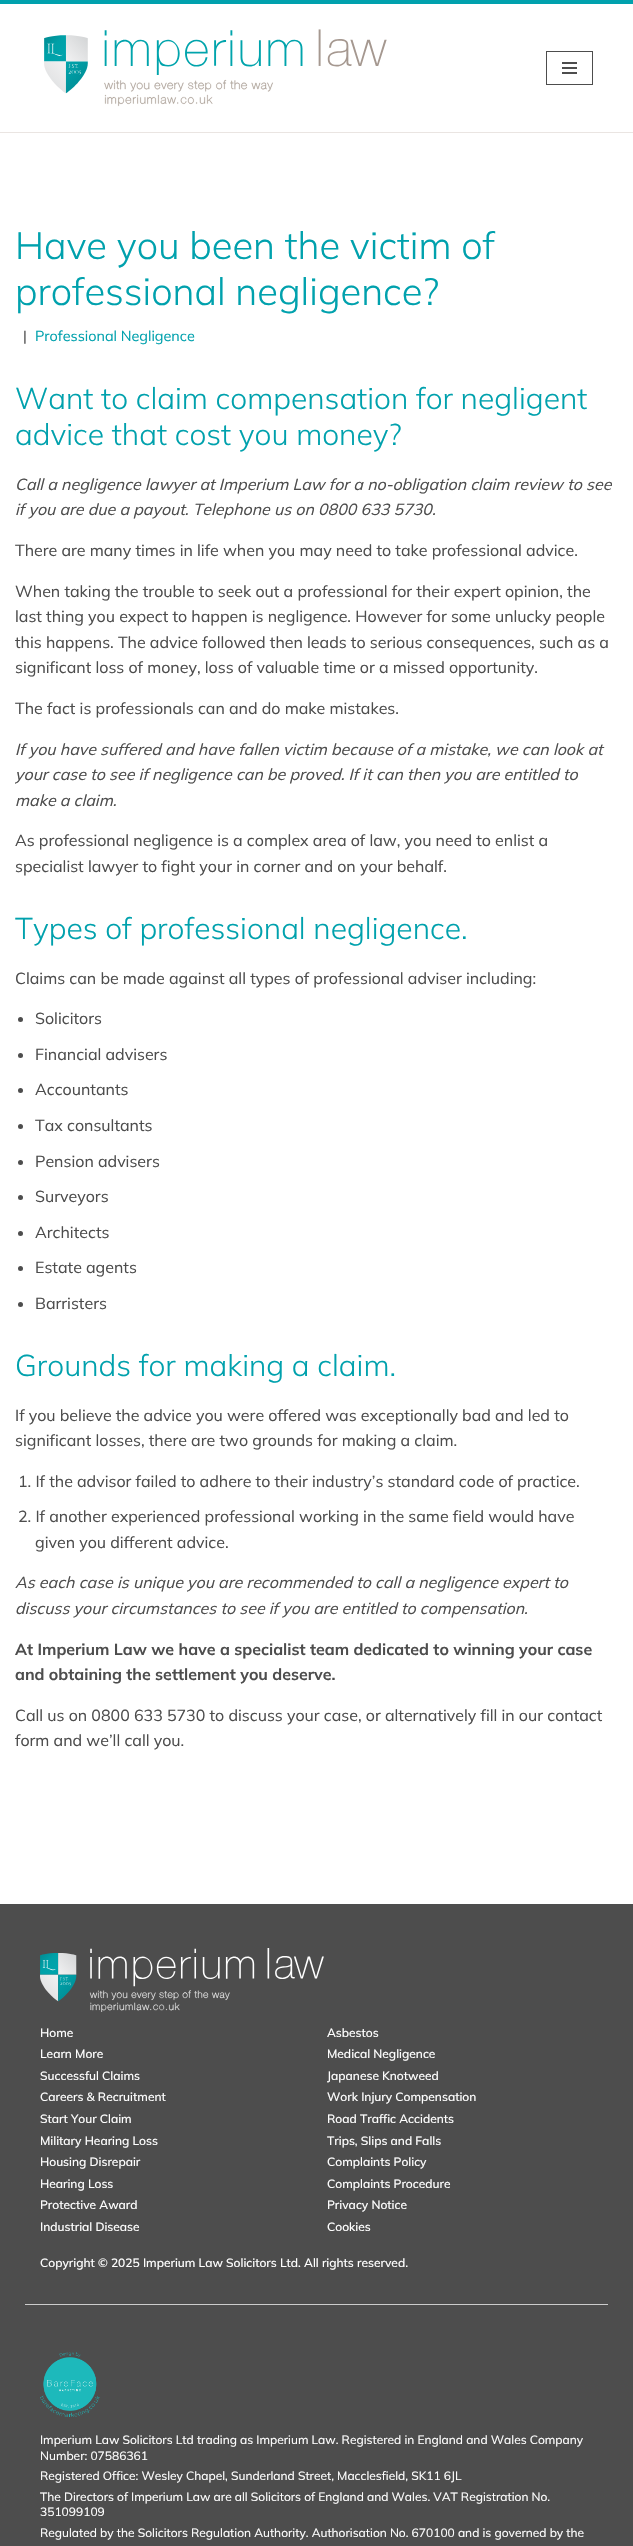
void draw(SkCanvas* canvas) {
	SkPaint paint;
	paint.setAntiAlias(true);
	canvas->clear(0xffffffff);
	paint.setColor(0xff00a1ad);
	canvas->drawRect(SkRect::MakeXYWH(0, 0, 633, 4), paint);
	paint.setColor(0xffeae5e2);
	canvas->drawRect(SkRect::MakeXYWH(0, 132, 633, 1), paint);
	canvas->drawImageRect(SkImages::DeferredFromEncodedData(SkData::MakeFromFileName("img1.png")), SkRect::MakeXYWH(44, 29, 343, 78), SkSamplingOptions());
	paint.setStroke(true);
	paint.setStrokeWidth(1);
	paint.setColor(0xff4d4d4d);
	canvas->drawRect(SkRect::MakeXYWH(546.5, 51.5, 46, 33), paint);
	paint.setStroke(false);
	canvas->drawRect(SkRect::MakeXYWH(562, 62, 15, 2), paint);
	canvas->drawRect(SkRect::MakeXYWH(562, 67, 15, 2), paint);
	canvas->drawRect(SkRect::MakeXYWH(562, 72, 15, 2), paint);
	SkFont f1(fontMgr->matchFamilyStyle("Mulish", SkFontStyle(300, SkFontStyle::kNormal_Width, SkFontStyle::kUpright_Slant)), 38);
	f1.setSubpixel(true);
	paint.setColor(0xff00a1ad);
	canvas->drawString("Have you been the victim of", 15, 259, f1, paint);
	canvas->drawString("professional negligence?", 15, 305, f1, paint);
	SkFont f2(fontMgr->matchFamilyStyle("Mulish", SkFontStyle::Normal()), 14.4);
	f2.setSubpixel(true);
	paint.setColor(0xff4d4d4d);
	canvas->drawString("|", 23, 341, f2, paint);
	paint.setColor(0xff00a1ad);
	canvas->drawString("Professional Negligence", 35, 341, f2, paint);
	SkFont f3(fontMgr->matchFamilyStyle("Mulish", SkFontStyle(300, SkFontStyle::kNormal_Width, SkFontStyle::kUpright_Slant)), 30);
	f3.setSubpixel(true);
	canvas->drawString("Want to claim compensation for negligent", 15, 409, f3, paint);
	canvas->drawString("advice that cost you money?", 15, 445, f3, paint);
	SkFont f4(fontMgr->matchFamilyStyle("Mulish", SkFontStyle::Italic()), 16);
	f4.setSubpixel(true);
	paint.setColor(0xff4d4d4d);
	canvas->drawString("Call a negligence lawyer at Imperium Law for a no-obligation claim review to see", 15, 490, f4, paint);
	canvas->drawString("if you are due a payout. Telephone us on 0800 633 5730.", 15, 515, f4, paint);
	SkFont f5(fontMgr->matchFamilyStyle("Mulish", SkFontStyle::Normal()), 16);
	f5.setSubpixel(true);
	canvas->drawString("There are many times in life when you may need to take professional advice.", 15, 556, f5, paint);
	canvas->drawString("When taking the trouble to seek out a professional for their expert opinion, the", 15, 597, f5, paint);
	canvas->drawString("last thing you expect to happen is negligence. However for some unlucky people", 15, 622, f5, paint);
	canvas->drawString("this happens. The advice followed then leads to serious consequences, such as a", 15, 648, f5, paint);
	canvas->drawString("significant loss of money, loss of valuable time or a missed opportunity.", 15, 673, f5, paint);
	canvas->drawString("The fact is professionals can and do make mistakes.", 15, 714, f5, paint);
	canvas->drawString("If you have suffered and have fallen victim because of a mistake, we can look at", 15, 755, f4, paint);
	canvas->drawString("your case to see if negligence can be proved. If it can then you are entitled to", 15, 780, f4, paint);
	canvas->drawString("make a claim.", 15, 806, f4, paint);
	canvas->drawString("As professional negligence is a complex area of law, you need to enlist a", 15, 846, f5, paint);
	canvas->drawString("specialist lawyer to fight your in corner and on your behalf.", 15, 872, f5, paint);
	paint.setColor(0xff00a1ad);
	canvas->drawString("Types of professional negligence.", 15, 939, f3, paint);
	paint.setColor(0xff4d4d4d);
	canvas->drawString("Claims can be made against all types of professional adviser including:", 15, 984, f5, paint);
	canvas->drawCircle(20.5, 1019.5, 2.5, paint);
	canvas->drawString("Solicitors", 35, 1024, f5, paint);
	canvas->drawCircle(20.5, 1055.5, 2.5, paint);
	canvas->drawString("Financial advisers", 35, 1060, f5, paint);
	canvas->drawCircle(20.5, 1090.5, 2.5, paint);
	canvas->drawString("Accountants", 35, 1095, f5, paint);
	canvas->drawCircle(20.5, 1126.5, 2.5, paint);
	canvas->drawString("Tax consultants", 35, 1131, f5, paint);
	canvas->drawCircle(20.5, 1162.5, 2.5, paint);
	canvas->drawString("Pension advisers", 35, 1167, f5, paint);
	canvas->drawCircle(20.5, 1197.5, 2.5, paint);
	canvas->drawString("Surveyors", 35, 1202, f5, paint);
	canvas->drawCircle(20.5, 1233.5, 2.5, paint);
	canvas->drawString("Architects", 35, 1238, f5, paint);
	canvas->drawCircle(20.5, 1268.5, 2.5, paint);
	canvas->drawString("Estate agents", 35, 1273, f5, paint);
	canvas->drawCircle(20.5, 1304.5, 2.5, paint);
	canvas->drawString("Barristers", 35, 1309, f5, paint);
	paint.setColor(0xff00a1ad);
	canvas->drawString("Grounds for making a claim.", 15, 1376, f3, paint);
	paint.setColor(0xff4d4d4d);
	canvas->drawString("If you believe the advice you were offered was exceptionally bad and led to", 15, 1421, f5, paint);
	canvas->drawString("significant losses, there are two grounds for making a claim.", 15, 1446, f5, paint);
	canvas->drawString("1. If the advisor failed to adhere to their industry’s standard code of practice.", 18, 1487, f5, paint);
	canvas->drawString("2. If another experienced professional working in the same field would have", 18, 1522, f5, paint);
	canvas->drawString("given you different advice.", 35, 1548, f5, paint);
	canvas->drawString("As each case is unique you are recommended to call a negligence expert to", 15, 1588, f4, paint);
	canvas->drawString("discuss your circumstances to see if you are entitled to compensation.", 15, 1614, f4, paint);
	SkFont f6(fontMgr->matchFamilyStyle("Mulish", SkFontStyle::Bold()), 16);
	f6.setSubpixel(true);
	canvas->drawString("At Imperium Law we have a specialist team dedicated to winning your case", 15, 1655, f6, paint);
	canvas->drawString("and obtaining the settlement you deserve.", 15, 1680, f6, paint);
	canvas->drawString("Call us on 0800 633 5730 to discuss your case, or alternatively fill in our contact", 15, 1721, f5, paint);
	canvas->drawString("form and we’ll call you.", 15, 1746, f5, paint);
	canvas->drawRect(SkRect::MakeXYWH(0, 1904, 633, 642), paint);
	paint.setColor(0xffcccccc);
	canvas->drawRect(SkRect::MakeXYWH(25, 2304, 583, 1), paint);
	canvas->drawImageRect(SkImages::DeferredFromEncodedData(SkData::MakeFromFileName("img2.png")), SkRect::MakeXYWH(40, 1948, 284, 64), SkSamplingOptions());
	SkFont f7(fontMgr->matchFamilyStyle("Mulish", SkFontStyle(500, SkFontStyle::kNormal_Width, SkFontStyle::kUpright_Slant)), 12);
	f7.setSubpixel(true);
	paint.setColor(0xffffffff);
	canvas->drawString("Home", 40, 2037, f7, paint);
	canvas->drawString("Asbestos", 327, 2037, f7, paint);
	canvas->drawString("Learn More", 40, 2058, f7, paint);
	canvas->drawString("Medical Negligence", 327, 2058, f7, paint);
	canvas->drawString("Successful Claims", 40, 2080, f7, paint);
	canvas->drawString("Japanese Knotweed", 327, 2080, f7, paint);
	canvas->drawString("Careers & Recruitment", 40, 2101, f7, paint);
	canvas->drawString("Work Injury Compensation", 327, 2101, f7, paint);
	canvas->drawString("Start Your Claim", 40, 2123, f7, paint);
	canvas->drawString("Road Traffic Accidents", 327, 2123, f7, paint);
	canvas->drawString("Military Hearing Loss", 40, 2145, f7, paint);
	canvas->drawString("Trips, Slips and Falls", 327, 2145, f7, paint);
	canvas->drawString("Housing Disrepair", 40, 2166, f7, paint);
	canvas->drawString("Complaints Policy", 327, 2166, f7, paint);
	canvas->drawString("Hearing Loss", 40, 2188, f7, paint);
	canvas->drawString("Complaints Procedure", 327, 2188, f7, paint);
	canvas->drawString("Protective Award", 40, 2209, f7, paint);
	canvas->drawString("Privacy Notice", 327, 2209, f7, paint);
	canvas->drawString("Industrial Disease", 40, 2231, f7, paint);
	canvas->drawString("Cookies", 327, 2231, f7, paint);
	canvas->drawString("Copyright © 2025 Imperium Law Solicitors Ltd. All rights reserved.", 40, 2267, f7, paint);
	canvas->drawImageRect(SkImages::DeferredFromEncodedData(SkData::MakeFromFileName("img3.png")), SkRect::MakeXYWH(40, 2352, 60, 65), SkSamplingOptions());
	SkFont f8(fontMgr->matchFamilyStyle("Mulish", SkFontStyle::Normal()), 12);
	f8.setSubpixel(true);
	canvas->drawString("Imperium Law Solicitors Ltd trading as Imperium Law. Registered in England and Wales Company", 40, 2444, f8, paint);
	canvas->drawString("Number: 07586361", 40, 2460, f8, paint);
	canvas->drawString("Registered Office: Wesley Chapel, Sunderland Street, Macclesfield, SK11 6JL", 40, 2480, f8, paint);
	canvas->drawString("The Directors of Imperium Law are all Solicitors of England and Wales. VAT Registration No.", 40, 2501, f8, paint);
	canvas->drawString("351099109", 40, 2516, f8, paint);
	canvas->drawString("Regulated by the Solicitors Regulation Authority. Authorisation No. 670100 and is governed by the", 40, 2537, f8, paint);
}
